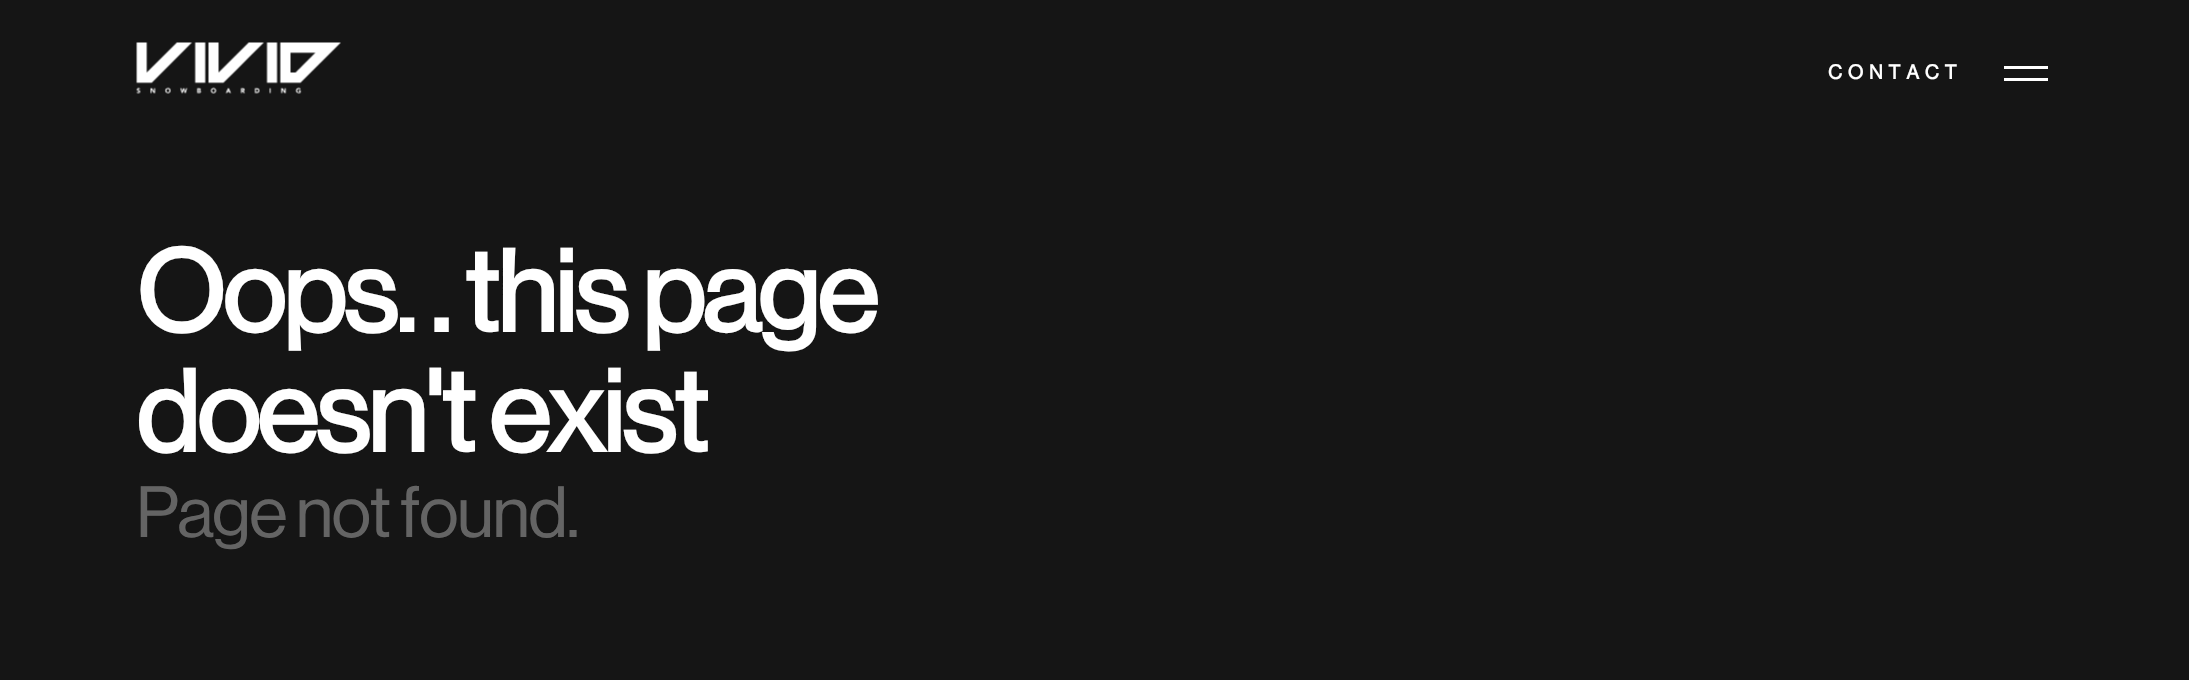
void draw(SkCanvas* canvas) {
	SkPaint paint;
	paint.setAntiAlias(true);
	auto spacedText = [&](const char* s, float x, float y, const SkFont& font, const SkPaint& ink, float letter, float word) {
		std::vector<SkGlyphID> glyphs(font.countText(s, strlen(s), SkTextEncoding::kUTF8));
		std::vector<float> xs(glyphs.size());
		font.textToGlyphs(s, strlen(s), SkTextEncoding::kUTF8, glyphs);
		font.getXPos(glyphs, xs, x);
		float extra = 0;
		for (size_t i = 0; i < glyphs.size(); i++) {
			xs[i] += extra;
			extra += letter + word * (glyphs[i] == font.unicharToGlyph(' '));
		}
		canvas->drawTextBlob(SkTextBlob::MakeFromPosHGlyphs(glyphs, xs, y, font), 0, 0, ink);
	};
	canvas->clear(0xffffffff);
	paint.setColor(0xff151515);
	canvas->drawRect(SkRect::MakeXYWH(0, 0, 2189, 680), paint);
	canvas->drawImageRect(SkImages::DeferredFromEncodedData(SkData::MakeFromFileName("img1.png")), SkRect::MakeXYWH(136, 42, 205, 52), SkSamplingOptions());
	SkFont f1(fontMgr->matchFamilyStyle("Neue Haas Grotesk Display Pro", SkFontStyle::Bold()), 19.75);
	f1.setSubpixel(true);
	paint.setColor(0xffffffff);
	spacedText("CONTACT", 1828, 79, f1, paint, 5.75, 0);
	canvas->drawRect(SkRect::MakeXYWH(2004, 66, 44, 3), paint);
	canvas->drawRect(SkRect::MakeXYWH(2004, 78, 44, 3), paint);
	SkFont f2(fontMgr->matchFamilyStyle("Neue Haas Grotesk Display Pro", SkFontStyle::Bold()), 113.5);
	f2.setSubpixel(true);
	spacedText("Oops. . this page", 136, 332, f2, paint, -2.25, 0);
	spacedText("doesn't exist", 136, 452, f2, paint, -2.25, 0);
	SkFont f3(fontMgr->matchFamilyStyle("Neue Haas Grotesk Display Pro", SkFontStyle(500, SkFontStyle::kNormal_Width, SkFontStyle::kUpright_Slant)), 71);
	f3.setSubpixel(true);
	paint.setColor(0xff646464);
	spacedText("Page not found.", 136, 537, f3, paint, -1.4, 0);
}
